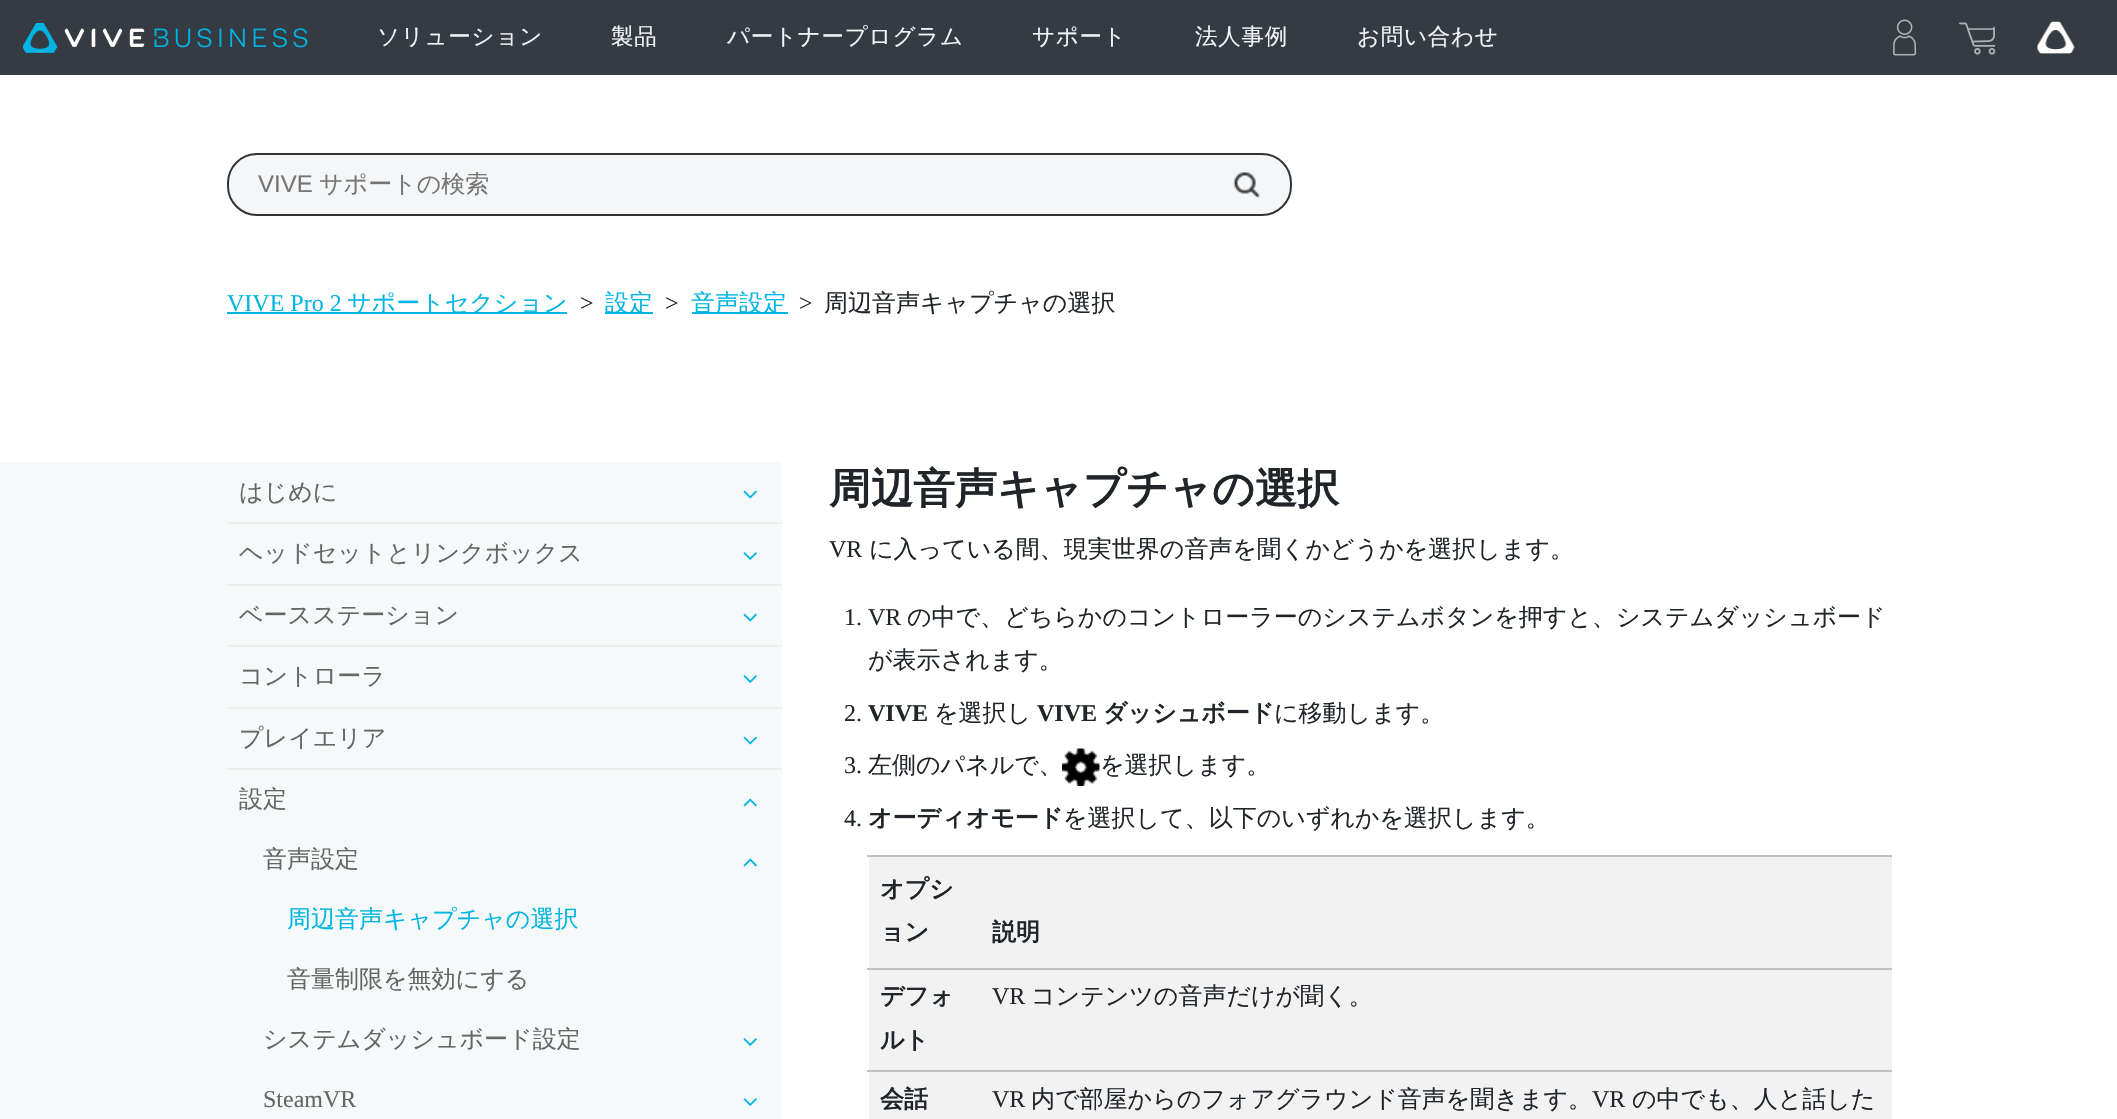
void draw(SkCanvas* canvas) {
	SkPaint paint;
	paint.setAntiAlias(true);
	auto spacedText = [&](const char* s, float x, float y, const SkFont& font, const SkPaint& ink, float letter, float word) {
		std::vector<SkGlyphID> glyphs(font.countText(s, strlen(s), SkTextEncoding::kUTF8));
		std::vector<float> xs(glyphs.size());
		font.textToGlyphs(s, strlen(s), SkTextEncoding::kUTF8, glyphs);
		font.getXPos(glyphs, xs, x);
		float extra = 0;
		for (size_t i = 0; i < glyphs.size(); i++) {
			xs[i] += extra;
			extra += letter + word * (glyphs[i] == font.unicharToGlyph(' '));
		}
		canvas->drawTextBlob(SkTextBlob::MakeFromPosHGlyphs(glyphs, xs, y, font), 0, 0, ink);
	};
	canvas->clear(0xffffffff);
	paint.setColor(0xff353b42);
	canvas->drawRect(SkRect::MakeXYWH(0, 0, 2117, 75), paint);
	canvas->drawImageRect(SkImages::DeferredFromEncodedData(SkData::MakeFromFileName("img1.png")), SkRect::MakeXYWH(23, 23, 285, 30), SkSamplingOptions());
	SkFont f1(fontMgr->matchFamilyStyle("WenQuanYi Zen Hei", SkFontStyle(500, SkFontStyle::kNormal_Width, SkFontStyle::kUpright_Slant)), 22.5);
	f1.setSubpixel(true);
	paint.setColor(0xfff2f4f8);
	spacedText("ソリューション", 377, 44, f1, paint, 0.75, 0);
	spacedText("製品", 611, 44, f1, paint, 0.75, 0);
	spacedText("パートナープログラム", 727, 44, f1, paint, 0.75, 0);
	spacedText("サポート", 1032, 44, f1, paint, 0.75, 0);
	spacedText("法人事例", 1195, 44, f1, paint, 0.75, 0);
	spacedText("お問い合わせ", 1357, 44, f1, paint, 0.75, 0);
	canvas->drawImageRect(SkImages::DeferredFromEncodedData(SkData::MakeFromFileName("img2.png")), SkRect::MakeXYWH(1893, 19, 24, 37), SkSamplingOptions());
	canvas->drawImageRect(SkImages::DeferredFromEncodedData(SkData::MakeFromFileName("img3.png")), SkRect::MakeXYWH(1959, 22, 37, 33), SkSamplingOptions());
	canvas->drawImageRect(SkImages::DeferredFromEncodedData(SkData::MakeFromFileName("img4.png")), SkRect::MakeXYWH(2037, 21, 38, 33), SkSamplingOptions());
	paint.setColor(0xfff4f6f8);
	canvas->drawRoundRect(SkRect::MakeXYWH(228, 154, 1063, 61), 29, 29, paint);
	paint.setStroke(true);
	paint.setStrokeWidth(2);
	paint.setColor(0xff333333);
	canvas->drawRoundRect(SkRect::MakeXYWH(228, 154, 1063, 61), 29, 29, paint);
	SkFont f2(fontMgr->matchFamilyStyle("Liberation Sans", SkFontStyle::Normal()), 24);
	f2.setSubpixel(true);
	paint.setStroke(false);
	paint.setColor(0xff757575);
	canvas->drawString("VIVE", 258, 192, f2, paint);
	SkFont f3(fontMgr->matchFamilyStyle("WenQuanYi Zen Hei", SkFontStyle(500, SkFontStyle::kNormal_Width, SkFontStyle::kUpright_Slant)), 24);
	f3.setSubpixel(true);
	canvas->drawString("サポートの検索", 319, 192, f3, paint);
	canvas->drawImageRect(SkImages::DeferredFromEncodedData(SkData::MakeFromFileName("img5.png")), SkRect::MakeXYWH(1233, 171, 27, 27), SkSamplingOptions());
	SkFont f4(fontMgr->matchFamilyStyle("Liberation Serif", SkFontStyle::Normal()), 24);
	f4.setSubpixel(true);
	paint.setColor(0xff00b5e2);
	canvas->drawString("VIVE Pro 2", 227, 311, f4, paint);
	canvas->drawRect(SkRect::MakeXYWH(227, 312, 340, 2), paint);
	canvas->drawString("サポートセクション", 347, 311, f3, paint);
	paint.setColor(0xff212529);
	canvas->drawString(">", 580, 311, f4, paint);
	paint.setColor(0xff00b5e2);
	canvas->drawRect(SkRect::MakeXYWH(605, 312, 48, 2), paint);
	canvas->drawString("設定", 605, 311, f3, paint);
	paint.setColor(0xff212529);
	canvas->drawString(">", 665, 311, f4, paint);
	paint.setColor(0xff00b5e2);
	canvas->drawRect(SkRect::MakeXYWH(692, 312, 96, 2), paint);
	canvas->drawString("音声設定", 691, 311, f3, paint);
	paint.setColor(0xff212529);
	canvas->drawString(">", 799, 311, f4, paint);
	canvas->drawString("周辺音声キャプチャの選択", 824, 311, f3, paint);
	paint.setColor(0xfff5f9fa);
	canvas->drawRect(SkRect::MakeXYWH(0, 462, 782, 657), paint);
	paint.setColor(0xffeeeeee);
	canvas->drawRect(SkRect::MakeXYWH(227, 522, 555, 2), paint);
	paint.setColor(0xff666666);
	canvas->drawString("はじめに", 239, 500, f3, paint);
	canvas->drawImageRect(SkImages::DeferredFromEncodedData(SkData::MakeFromFileName("img6.png")), SkRect::MakeXYWH(743, 490, 14, 9), SkSamplingOptions());
	paint.setColor(0xffeeeeee);
	canvas->drawRect(SkRect::MakeXYWH(227, 584, 555, 2), paint);
	paint.setColor(0xff666666);
	canvas->drawString("ヘッドセットとリンクボックス", 239, 561, f3, paint);
	canvas->drawImageRect(SkImages::DeferredFromEncodedData(SkData::MakeFromFileName("img7.png")), SkRect::MakeXYWH(743, 552, 14, 8), SkSamplingOptions());
	paint.setColor(0xffeeeeee);
	canvas->drawRect(SkRect::MakeXYWH(227, 645, 555, 2), paint);
	paint.setColor(0xff666666);
	canvas->drawString("ベースステーション", 239, 623, f3, paint);
	canvas->drawImageRect(SkImages::DeferredFromEncodedData(SkData::MakeFromFileName("img6.png")), SkRect::MakeXYWH(743, 613, 14, 9), SkSamplingOptions());
	paint.setColor(0xffeeeeee);
	canvas->drawRect(SkRect::MakeXYWH(227, 707, 555, 2), paint);
	paint.setColor(0xff666666);
	canvas->drawString("コントローラ", 239, 684, f3, paint);
	canvas->drawImageRect(SkImages::DeferredFromEncodedData(SkData::MakeFromFileName("img7.png")), SkRect::MakeXYWH(743, 675, 14, 8), SkSamplingOptions());
	paint.setColor(0xffeeeeee);
	canvas->drawRect(SkRect::MakeXYWH(227, 768, 555, 2), paint);
	paint.setColor(0xff666666);
	canvas->drawString("プレイエリア", 239, 746, f3, paint);
	canvas->drawImageRect(SkImages::DeferredFromEncodedData(SkData::MakeFromFileName("img6.png")), SkRect::MakeXYWH(743, 736, 14, 9), SkSamplingOptions());
	canvas->drawString("設定", 239, 807, f3, paint);
	canvas->drawImageRect(SkImages::DeferredFromEncodedData(SkData::MakeFromFileName("img8.png")), SkRect::MakeXYWH(743, 798, 14, 9), SkSamplingOptions());
	canvas->drawString("音声設定", 263, 867, f3, paint);
	canvas->drawImageRect(SkImages::DeferredFromEncodedData(SkData::MakeFromFileName("img8.png")), SkRect::MakeXYWH(743, 858, 14, 9), SkSamplingOptions());
	paint.setColor(0xff00b5e2);
	canvas->drawString("周辺音声キャプチャの選択", 287, 927, f3, paint);
	paint.setColor(0xff666666);
	canvas->drawString("音量制限を無効にする", 287, 987, f3, paint);
	canvas->drawString("システムダッシュボード設定", 263, 1047, f3, paint);
	canvas->drawImageRect(SkImages::DeferredFromEncodedData(SkData::MakeFromFileName("img7.png")), SkRect::MakeXYWH(743, 1038, 14, 8), SkSamplingOptions());
	canvas->drawString("SteamVR", 263, 1107, f4, paint);
	canvas->drawImageRect(SkImages::DeferredFromEncodedData(SkData::MakeFromFileName("img7.png")), SkRect::MakeXYWH(743, 1098, 14, 8), SkSamplingOptions());
	SkFont f5(fontMgr->matchFamilyStyle("WenQuanYi Zen Hei", SkFontStyle::Bold()), 42);
	f5.setSubpixel(true);
	paint.setColor(0xff212529);
	canvas->drawString("周辺音声キャプチャの選択", 829, 503, f5, paint);
	canvas->drawString("VR", 829, 557, f4, paint);
	canvas->drawString("に入っている間、現実世界の音声を聞くかどうかを選択します。", 869, 557, f3, paint);
	canvas->drawString("1. VR", 844, 625, f4, paint);
	canvas->drawString("の中で、どちらかのコントローラーのシステムボタンを押すと、システムダッシュボード", 907, 625, f3, paint);
	canvas->drawString("が表示されます。", 868, 668, f3, paint);
	canvas->drawString("2.", 844, 721, f4, paint);
	SkFont f6(fontMgr->matchFamilyStyle("Liberation Serif", SkFontStyle::Bold()), 24);
	f6.setSubpixel(true);
	canvas->drawString("VIVE", 868, 721, f6, paint);
	canvas->drawString("を選択し", 934, 721, f3, paint);
	canvas->drawString("VIVE", 1037, 721, f6, paint);
	SkFont f7(fontMgr->matchFamilyStyle("WenQuanYi Zen Hei", SkFontStyle::Bold()), 24);
	f7.setSubpixel(true);
	canvas->drawString("ダッシュボード", 1103, 721, f7, paint);
	canvas->drawString("に移動します。", 1274, 721, f3, paint);
	canvas->drawString("3.", 844, 773, f4, paint);
	canvas->drawString("左側のパネルで、", 868, 773, f3, paint);
	canvas->drawImageRect(SkImages::DeferredFromEncodedData(SkData::MakeFromFileName("img9.png")), SkRect::MakeXYWH(1062, 748, 38, 38), SkSamplingOptions());
	canvas->drawString("を選択します。", 1100, 773, f3, paint);
	canvas->drawString("4.", 844, 826, f4, paint);
	canvas->drawString("オーディオモード", 868, 826, f7, paint);
	canvas->drawString("を選択して、以下のいずれかを選択します。", 1063, 826, f3, paint);
	paint.setColor(0xfff2f2f2);
	canvas->drawRect(SkRect::MakeXYWH(869, 857, 1023, 111), paint);
	paint.setColor(0xff212529);
	canvas->drawString("オプシ", 880, 897, f7, paint);
	canvas->drawString("ョン", 880, 940, f7, paint);
	paint.setColor(0xffc0c0c0);
	canvas->drawRect(SkRect::MakeXYWH(867, 855, 1025, 2), paint);
	paint.setColor(0xff212529);
	canvas->drawString("説明", 992, 940, f7, paint);
	paint.setColor(0xfff2f2f2);
	canvas->drawRect(SkRect::MakeXYWH(869, 970, 1023, 100), paint);
	paint.setColor(0xff212529);
	canvas->drawString("デフォ", 880, 1004, f7, paint);
	canvas->drawString("ルト", 880, 1048, f7, paint);
	paint.setColor(0xffc0c0c0);
	canvas->drawRect(SkRect::MakeXYWH(867, 968, 1025, 2), paint);
	paint.setColor(0xff212529);
	canvas->drawString("VR", 992, 1004, f4, paint);
	canvas->drawString("コンテンツの音声だけが聞く。", 1031, 1004, f3, paint);
	paint.setColor(0xfff2f2f2);
	canvas->drawRect(SkRect::MakeXYWH(869, 1072, 1023, 47), paint);
	paint.setColor(0xff212529);
	canvas->drawString("会話", 880, 1107, f7, paint);
	paint.setColor(0xffc0c0c0);
	canvas->drawRect(SkRect::MakeXYWH(867, 1070, 1025, 2), paint);
	paint.setColor(0xff212529);
	canvas->drawString("VR", 992, 1107, f4, paint);
	canvas->drawString("内で部屋からのフォアグラウンド音声を聞きます。", 1031, 1107, f3, paint);
	canvas->drawString("VR", 1592, 1107, f4, paint);
	canvas->drawString("の中でも、人と話した", 1632, 1107, f3, paint);
}
